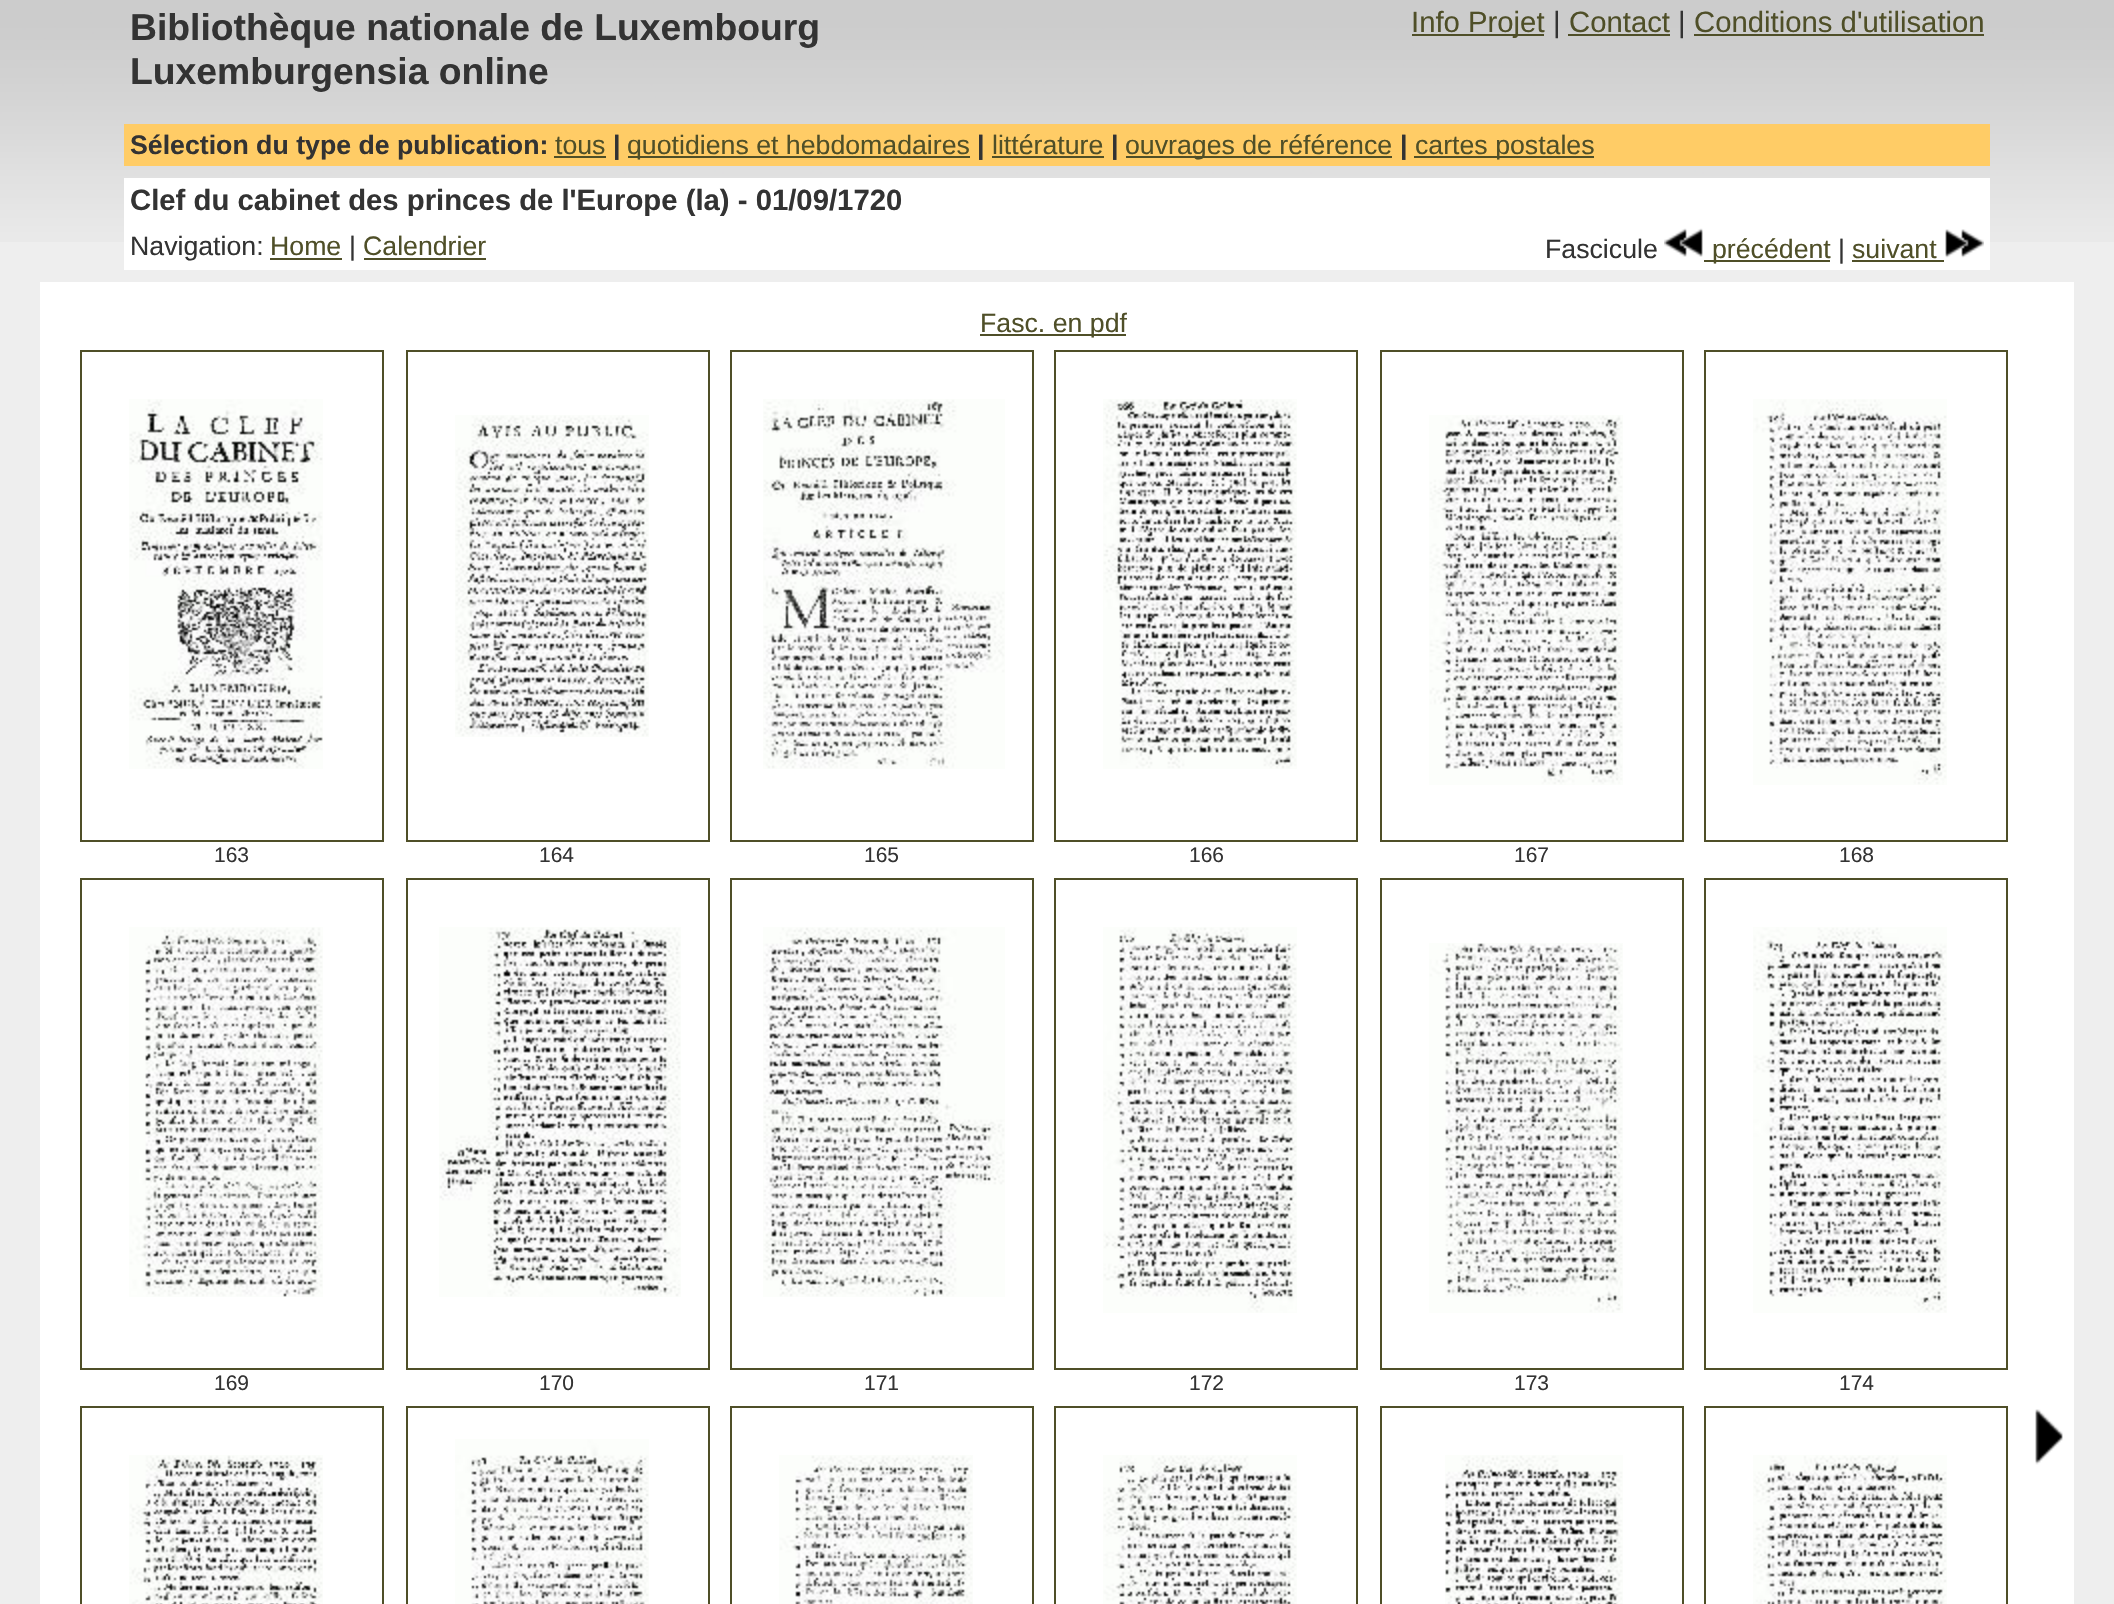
void draw(SkCanvas* canvas) {
	SkPaint paint;
	paint.setAntiAlias(true);
	canvas->clear(0xffeeeeee);
	canvas->drawImageRect(SkImages::DeferredFromEncodedData(SkData::MakeFromFileName("img1.png")), SkRect::MakeXYWH(0, 0, 2114, 242), SkSamplingOptions());
	canvas->drawImageRect(SkImages::DeferredFromEncodedData(SkData::MakeFromFileName("img2.png")), SkRect::MakeXYWH(124, 0, 1866, 124), SkSamplingOptions());
	SkFont f1(fontMgr->matchFamilyStyle("Liberation Sans", SkFontStyle::Bold()), 37.3);
	f1.setSubpixel(true);
	paint.setColor(0xff333333);
	canvas->drawString("Bibliothèque nationale de Luxembourg", 130, 40, f1, paint);
	canvas->drawString("Luxemburgensia online", 130, 84, f1, paint);
	paint.setColor(0xff4f4f28);
	canvas->drawRect(SkRect::MakeXYWH(1412, 34, 132, 2), paint);
	SkFont f2(fontMgr->matchFamilyStyle("Liberation Sans", SkFontStyle::Normal()), 29.3);
	f2.setSubpixel(true);
	canvas->drawString("Info Projet", 1411, 32, f2, paint);
	paint.setColor(0xff333333);
	canvas->drawString("|", 1553, 32, f2, paint);
	paint.setColor(0xff4f4f28);
	canvas->drawString("Contact", 1569, 32, f2, paint);
	canvas->drawRect(SkRect::MakeXYWH(1568, 34, 102, 2), paint);
	paint.setColor(0xff333333);
	canvas->drawString("|", 1678, 32, f2, paint);
	paint.setColor(0xff4f4f28);
	canvas->drawString("Conditions d'utilisation", 1694, 32, f2, paint);
	canvas->drawRect(SkRect::MakeXYWH(1694, 34, 290, 2), paint);
	paint.setColor(0xffffcc66);
	canvas->drawRect(SkRect::MakeXYWH(124, 124, 1866, 42), paint);
	SkFont f3(fontMgr->matchFamilyStyle("Liberation Sans", SkFontStyle::Bold()), 26.7);
	f3.setSubpixel(true);
	paint.setColor(0xff333333);
	canvas->drawString("Sélection du type de publication:", 130, 154, f3, paint);
	SkFont f4(fontMgr->matchFamilyStyle("Liberation Sans", SkFontStyle::Normal()), 26.7);
	f4.setSubpixel(true);
	paint.setColor(0xff4f4f28);
	canvas->drawString("tous", 555, 154, f4, paint);
	canvas->drawRect(SkRect::MakeXYWH(554, 156, 52, 2), paint);
	paint.setColor(0xff333333);
	canvas->drawString("|", 613, 154, f3, paint);
	paint.setColor(0xff4f4f28);
	canvas->drawRect(SkRect::MakeXYWH(628, 156, 342, 2), paint);
	canvas->drawString("quotidiens et hebdomadaires", 627, 154, f4, paint);
	paint.setColor(0xff333333);
	canvas->drawString("|", 977, 154, f3, paint);
	paint.setColor(0xff4f4f28);
	canvas->drawString("littérature", 992, 154, f4, paint);
	canvas->drawRect(SkRect::MakeXYWH(992, 156, 112, 2), paint);
	paint.setColor(0xff333333);
	canvas->drawString("|", 1111, 154, f3, paint);
	paint.setColor(0xff4f4f28);
	canvas->drawRect(SkRect::MakeXYWH(1126, 156, 266, 2), paint);
	canvas->drawString("ouvrages de référence", 1125, 154, f4, paint);
	paint.setColor(0xff333333);
	canvas->drawString("|", 1400, 154, f3, paint);
	paint.setColor(0xff4f4f28);
	canvas->drawRect(SkRect::MakeXYWH(1414, 156, 180, 2), paint);
	canvas->drawString("cartes postales", 1415, 154, f4, paint);
	paint.setColor(0xffffffff);
	canvas->drawRect(SkRect::MakeXYWH(124, 178, 1866, 92), paint);
	SkFont f5(fontMgr->matchFamilyStyle("Liberation Sans", SkFontStyle::Bold()), 29.3);
	f5.setSubpixel(true);
	paint.setColor(0xff333333);
	canvas->drawString("Clef du cabinet des princes de l'Europe (la) - 01/09/1720", 130, 210, f5, paint);
	canvas->drawString("Navigation:", 130, 255, f4, paint);
	paint.setColor(0xff4f4f28);
	canvas->drawString("Home", 270, 255, f4, paint);
	canvas->drawRect(SkRect::MakeXYWH(270, 258, 72, 2), paint);
	paint.setColor(0xff333333);
	canvas->drawString("|", 349, 255, f4, paint);
	paint.setColor(0xff4f4f28);
	canvas->drawString("Calendrier", 363, 255, f4, paint);
	canvas->drawRect(SkRect::MakeXYWH(364, 258, 122, 2), paint);
	paint.setColor(0xff333333);
	canvas->drawString("Fascicule", 1545, 258, f4, paint);
	canvas->drawImageRect(SkImages::DeferredFromEncodedData(SkData::MakeFromFileName("img3.png")), SkRect::MakeXYWH(1664, 228, 39, 29), SkSamplingOptions());
	paint.setColor(0xff4f4f28);
	canvas->drawRect(SkRect::MakeXYWH(1704, 260, 126, 2), paint);
	canvas->drawString("précédent", 1712, 258, f4, paint);
	paint.setColor(0xff333333);
	canvas->drawString("|", 1838, 258, f4, paint);
	paint.setColor(0xff4f4f28);
	canvas->drawString("suivant", 1852, 258, f4, paint);
	canvas->drawRect(SkRect::MakeXYWH(1852, 260, 92, 2), paint);
	canvas->drawImageRect(SkImages::DeferredFromEncodedData(SkData::MakeFromFileName("img4.png")), SkRect::MakeXYWH(1945, 229, 39, 29), SkSamplingOptions());
	paint.setColor(0xffffffff);
	canvas->drawRect(SkRect::MakeXYWH(40, 282, 2034, 1322), paint);
	paint.setColor(0xff4f4f28);
	canvas->drawRect(SkRect::MakeXYWH(980, 334, 146, 2), paint);
	canvas->drawString("Fasc. en pdf", 980, 332, f4, paint);
	paint.setStroke(true);
	paint.setStrokeWidth(2);
	canvas->drawRect(SkRect::MakeXYWH(81, 351, 302, 490), paint);
	canvas->drawImageRect(SkImages::DeferredFromEncodedData(SkData::MakeFromFileName("img5.png")), SkRect::MakeXYWH(129, 399, 194, 370), SkSamplingOptions());
	SkFont f6(fontMgr->matchFamilyStyle("Liberation Sans", SkFontStyle::Normal()), 21);
	f6.setSubpixel(true);
	paint.setStroke(false);
	paint.setColor(0xff333333);
	canvas->drawString("163", 214, 862, f6, paint);
	paint.setStroke(true);
	paint.setColor(0xff4f4f28);
	canvas->drawRect(SkRect::MakeXYWH(407, 351, 302, 490), paint);
	canvas->drawImageRect(SkImages::DeferredFromEncodedData(SkData::MakeFromFileName("img6.png")), SkRect::MakeXYWH(455, 415, 194, 322), SkSamplingOptions());
	paint.setStroke(false);
	paint.setColor(0xff333333);
	canvas->drawString("164", 539, 862, f6, paint);
	paint.setStroke(true);
	paint.setColor(0xff4f4f28);
	canvas->drawRect(SkRect::MakeXYWH(731, 351, 302, 490), paint);
	canvas->drawImageRect(SkImages::DeferredFromEncodedData(SkData::MakeFromFileName("img7.png")), SkRect::MakeXYWH(763, 399, 242, 370), SkSamplingOptions());
	paint.setStroke(false);
	paint.setColor(0xff333333);
	canvas->drawString("165", 864, 862, f6, paint);
	paint.setStroke(true);
	paint.setColor(0xff4f4f28);
	canvas->drawRect(SkRect::MakeXYWH(1055, 351, 302, 490), paint);
	canvas->drawImageRect(SkImages::DeferredFromEncodedData(SkData::MakeFromFileName("img8.png")), SkRect::MakeXYWH(1103, 399, 194, 370), SkSamplingOptions());
	paint.setStroke(false);
	paint.setColor(0xff333333);
	canvas->drawString("166", 1189, 862, f6, paint);
	paint.setStroke(true);
	paint.setColor(0xff4f4f28);
	canvas->drawRect(SkRect::MakeXYWH(1381, 351, 302, 490), paint);
	canvas->drawImageRect(SkImages::DeferredFromEncodedData(SkData::MakeFromFileName("img9.png")), SkRect::MakeXYWH(1429, 415, 194, 370), SkSamplingOptions());
	paint.setStroke(false);
	paint.setColor(0xff333333);
	canvas->drawString("167", 1514, 862, f6, paint);
	paint.setStroke(true);
	paint.setColor(0xff4f4f28);
	canvas->drawRect(SkRect::MakeXYWH(1705, 351, 302, 490), paint);
	canvas->drawImageRect(SkImages::DeferredFromEncodedData(SkData::MakeFromFileName("img10.png")), SkRect::MakeXYWH(1753, 399, 194, 386), SkSamplingOptions());
	paint.setStroke(false);
	paint.setColor(0xff333333);
	canvas->drawString("168", 1839, 862, f6, paint);
	paint.setStroke(true);
	paint.setColor(0xff4f4f28);
	canvas->drawRect(SkRect::MakeXYWH(81, 879, 302, 490), paint);
	canvas->drawImageRect(SkImages::DeferredFromEncodedData(SkData::MakeFromFileName("img11.png")), SkRect::MakeXYWH(129, 927, 194, 370), SkSamplingOptions());
	paint.setStroke(false);
	paint.setColor(0xff333333);
	canvas->drawString("169", 214, 1390, f6, paint);
	paint.setStroke(true);
	paint.setColor(0xff4f4f28);
	canvas->drawRect(SkRect::MakeXYWH(407, 879, 302, 490), paint);
	canvas->drawImageRect(SkImages::DeferredFromEncodedData(SkData::MakeFromFileName("img12.png")), SkRect::MakeXYWH(439, 927, 242, 370), SkSamplingOptions());
	paint.setStroke(false);
	paint.setColor(0xff333333);
	canvas->drawString("170", 539, 1390, f6, paint);
	paint.setStroke(true);
	paint.setColor(0xff4f4f28);
	canvas->drawRect(SkRect::MakeXYWH(731, 879, 302, 490), paint);
	canvas->drawImageRect(SkImages::DeferredFromEncodedData(SkData::MakeFromFileName("img13.png")), SkRect::MakeXYWH(763, 927, 242, 370), SkSamplingOptions());
	paint.setStroke(false);
	paint.setColor(0xff333333);
	canvas->drawString("171", 864, 1390, f6, paint);
	paint.setStroke(true);
	paint.setColor(0xff4f4f28);
	canvas->drawRect(SkRect::MakeXYWH(1055, 879, 302, 490), paint);
	canvas->drawImageRect(SkImages::DeferredFromEncodedData(SkData::MakeFromFileName("img14.png")), SkRect::MakeXYWH(1103, 927, 194, 386), SkSamplingOptions());
	paint.setStroke(false);
	paint.setColor(0xff333333);
	canvas->drawString("172", 1189, 1390, f6, paint);
	paint.setStroke(true);
	paint.setColor(0xff4f4f28);
	canvas->drawRect(SkRect::MakeXYWH(1381, 879, 302, 490), paint);
	canvas->drawImageRect(SkImages::DeferredFromEncodedData(SkData::MakeFromFileName("img15.png")), SkRect::MakeXYWH(1429, 943, 194, 370), SkSamplingOptions());
	paint.setStroke(false);
	paint.setColor(0xff333333);
	canvas->drawString("173", 1514, 1390, f6, paint);
	paint.setStroke(true);
	paint.setColor(0xff4f4f28);
	canvas->drawRect(SkRect::MakeXYWH(1705, 879, 302, 490), paint);
	canvas->drawImageRect(SkImages::DeferredFromEncodedData(SkData::MakeFromFileName("img16.png")), SkRect::MakeXYWH(1753, 927, 194, 386), SkSamplingOptions());
	paint.setStroke(false);
	paint.setColor(0xff333333);
	canvas->drawString("174", 1839, 1390, f6, paint);
	paint.setStroke(true);
	paint.setColor(0xff4f4f28);
	canvas->drawRect(SkRect::MakeXYWH(81, 1407, 302, 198), paint);
	canvas->drawImageRect(SkImages::DeferredFromEncodedData(SkData::MakeFromFileName("img17.png")), SkRect::MakeXYWH(129, 1455, 194, 149), SkSamplingOptions());
	canvas->drawRect(SkRect::MakeXYWH(407, 1407, 302, 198), paint);
	canvas->drawImageRect(SkImages::DeferredFromEncodedData(SkData::MakeFromFileName("img18.png")), SkRect::MakeXYWH(455, 1439, 194, 165), SkSamplingOptions());
	canvas->drawRect(SkRect::MakeXYWH(731, 1407, 302, 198), paint);
	canvas->drawImageRect(SkImages::DeferredFromEncodedData(SkData::MakeFromFileName("img19.png")), SkRect::MakeXYWH(779, 1455, 194, 149), SkSamplingOptions());
	canvas->drawRect(SkRect::MakeXYWH(1055, 1407, 302, 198), paint);
	canvas->drawImageRect(SkImages::DeferredFromEncodedData(SkData::MakeFromFileName("img20.png")), SkRect::MakeXYWH(1103, 1455, 194, 149), SkSamplingOptions());
	canvas->drawRect(SkRect::MakeXYWH(1381, 1407, 302, 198), paint);
	canvas->drawImageRect(SkImages::DeferredFromEncodedData(SkData::MakeFromFileName("img21.png")), SkRect::MakeXYWH(1445, 1455, 178, 149), SkSamplingOptions());
	canvas->drawRect(SkRect::MakeXYWH(1705, 1407, 302, 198), paint);
	canvas->drawImageRect(SkImages::DeferredFromEncodedData(SkData::MakeFromFileName("img22.png")), SkRect::MakeXYWH(1753, 1455, 194, 149), SkSamplingOptions());
	canvas->drawImageRect(SkImages::DeferredFromEncodedData(SkData::MakeFromFileName("img23.png")), SkRect::MakeXYWH(2035, 1409, 28, 56), SkSamplingOptions());
}
